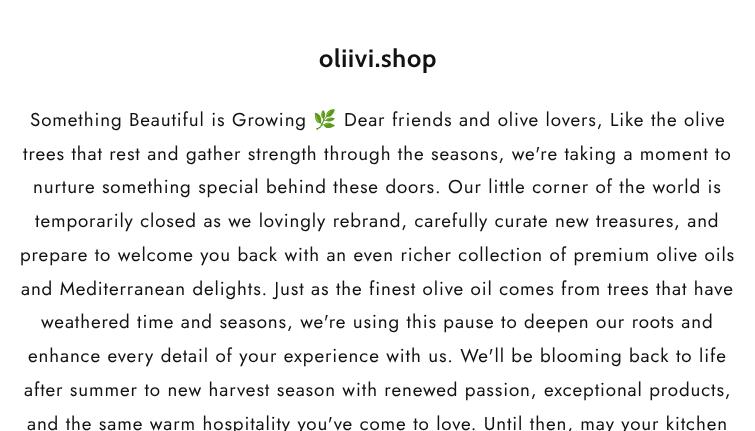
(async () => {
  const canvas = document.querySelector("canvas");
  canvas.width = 755;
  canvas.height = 431;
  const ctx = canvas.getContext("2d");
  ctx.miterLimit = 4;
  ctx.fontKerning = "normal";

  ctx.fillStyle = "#ffffff";
  ctx.fillRect(0, 0, 755, 431);
  ctx.letterSpacing = "0.75px";
  ctx.font = "bold 25px Cabin";
  ctx.fillStyle = "#121212";
  ctx.fillText("oliivi.shop", 319, 67);
  ctx.letterSpacing = "0.88px";
  ctx.font = "18.75px Jost";
  ctx.fillText("Something Beautiful is Growing", 30, 126);
  ctx.font = "18.75px Noto Color Emoji";
  ctx.fillText("🌿", 313, 126);
  ctx.font = "18.75px Jost";
  for (const [text, x, y] of [
    ["Dear friends and olive lovers, Like the olive", 344, 126],
    ["trees that rest and gather strength through the seasons, we're taking a moment to", 23, 160],
    ["nurture something special behind these doors. Our little corner of the world is", 33, 193],
    ["temporarily closed as we lovingly rebrand, carefully curate new treasures, and", 35, 227],
    ["prepare to welcome you back with an even richer collection of premium olive oils", 20, 261],
    ["and Mediterranean delights. Just as the finest olive oil comes from trees that have", 21, 295],
    ["weathered time and seasons, we're using this pause to deepen our roots and", 41, 328],
    ["enhance every detail of your experience with us. We'll be blooming back to life", 28, 362],
    ["after summer to new harvest season with renewed passion, exceptional products,", 24, 396],
    ["and the same warm hospitality you've come to love. Until then, may your kitchen", 27, 430],
  ]) {
    ctx.fillText(text, x, y);
  }
})();
